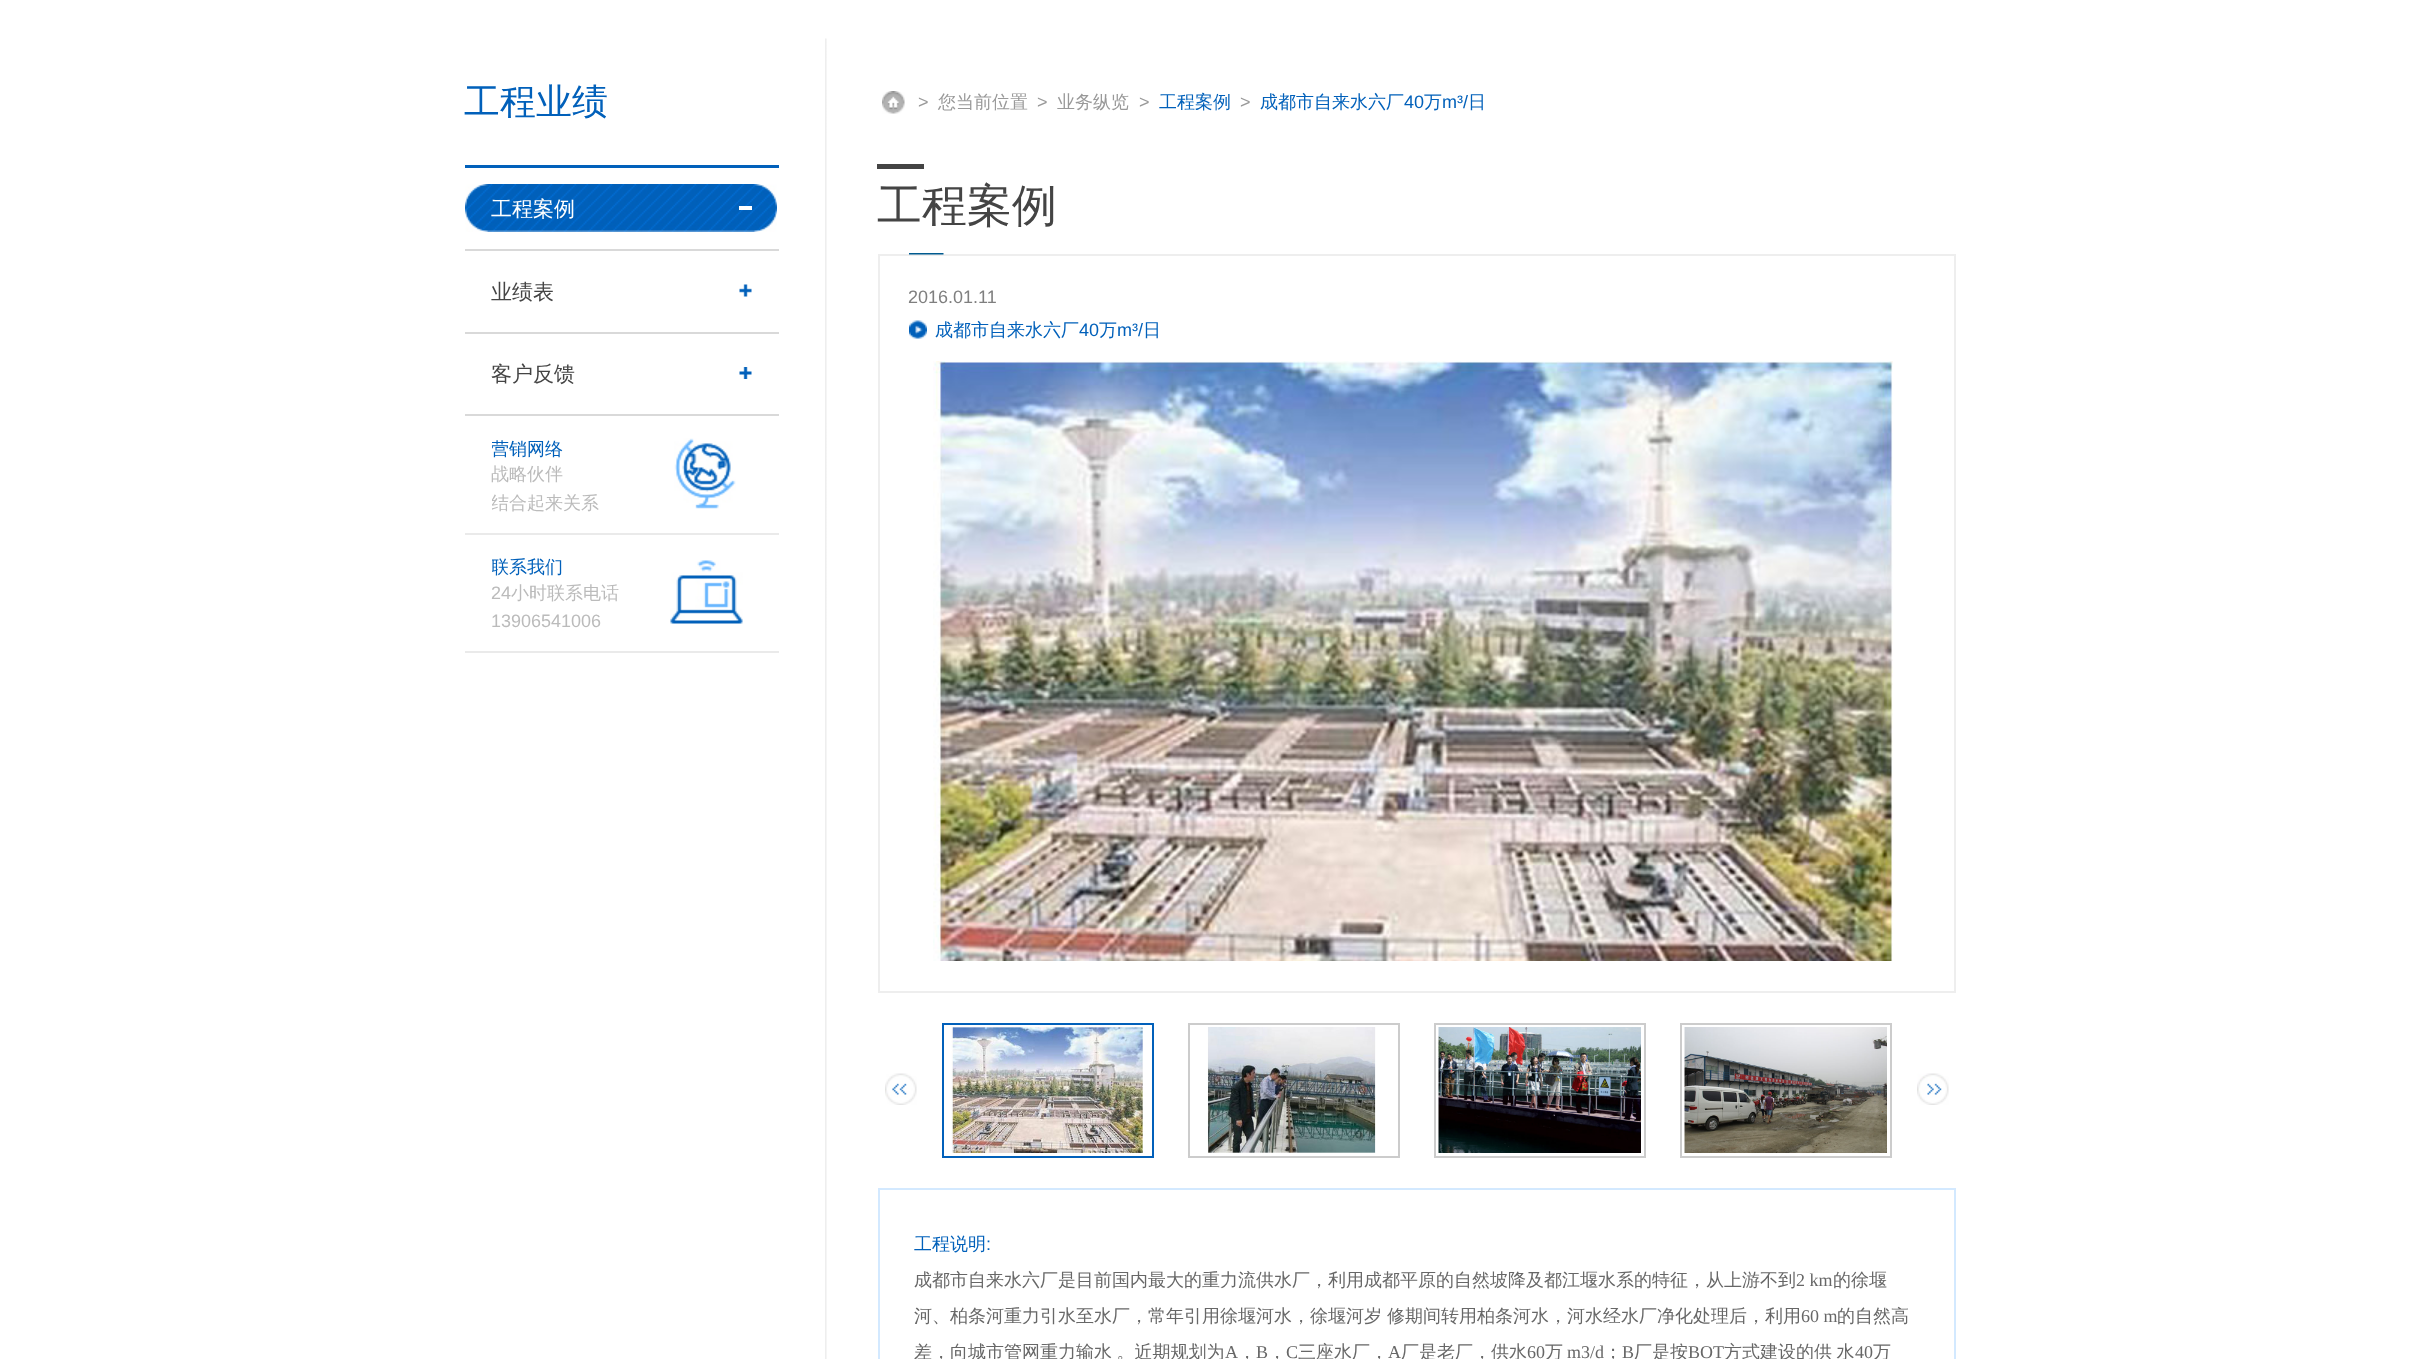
(async () => {
  const canvas = document.querySelector("canvas");
  canvas.width = 2419;
  canvas.height = 1359;
  const ctx = canvas.getContext("2d");
  ctx.miterLimit = 4;
  ctx.fontKerning = "normal";
  async function loadImage(src) {
    const img = new Image();
    img.src = src;
    await img.decode();
    return img;
  }

  ctx.fillStyle = "#ffffff";
  ctx.fillRect(0, 0, 2419, 1359);
  ctx.drawImage(await loadImage("img/1.png"), 825, 38, 2, 1321);
  ctx.fillStyle = "#0160ba";
  ctx.fillRect(465, 165, 314, 3);
  ctx.fillStyle = "#d9d9d9";
  ctx.fillRect(465, 249, 314, 2);
  ctx.drawImage(await loadImage("img/2.png"), 465, 184, 312, 48);
  ctx.fillStyle = "#ffffff";
  ctx.fillRect(739, 206, 13, 4);
  ctx.fillStyle = "#d9d9d9";
  ctx.fillRect(465, 332, 314, 2);
  ctx.drawImage(await loadImage("img/3.png"), 739, 284, 13, 13);
  ctx.fillRect(465, 414, 314, 2);
  ctx.drawImage(await loadImage("img/4.png"), 739, 367, 13, 12);
  ctx.fillStyle = "#eaeaea";
  ctx.fillRect(465, 533, 314, 2);
  ctx.drawImage(await loadImage("img/5.png"), 674, 438, 62, 71);
  ctx.fillRect(465, 651, 314, 2);
  ctx.drawImage(await loadImage("img/6.png"), 670, 560, 73, 64);
  ctx.drawImage(await loadImage("img/7.png"), 882, 91, 23, 23);
  ctx.fillStyle = "#444444";
  ctx.fillRect(877, 164, 47, 5);
  ctx.strokeStyle = "#eeeeee";
  ctx.lineWidth = 2;
  ctx.strokeRect(879, 255, 1076, 737);
  ctx.drawImage(await loadImage("img/8.png"), 909, 253, 35, 2);
  ctx.drawImage(await loadImage("img/9.png"), 909, 320, 18, 19);
  ctx.drawImage(await loadImage("img/10.png"), 933, 361, 960, 600);
  ctx.drawImage(await loadImage("img/11.png"), 885, 1073, 32, 32);
  ctx.strokeStyle = "#0160ba";
  ctx.strokeRect(943, 1024, 210, 133);
  ctx.drawImage(await loadImage("img/12.png"), 951, 1027, 192, 126);
  ctx.strokeStyle = "#cccccc";
  ctx.strokeRect(1189, 1024, 210, 133);
  ctx.drawImage(await loadImage("img/13.png"), 1207, 1027, 169, 126);
  ctx.strokeRect(1435, 1024, 210, 133);
  ctx.drawImage(await loadImage("img/14.png"), 1438, 1027, 203, 126);
  ctx.strokeRect(1681, 1024, 210, 133);
  ctx.drawImage(await loadImage("img/15.png"), 1684, 1027, 203, 126);
  ctx.drawImage(await loadImage("img/16.png"), 1917, 1073, 32, 32);
  ctx.strokeStyle = "#d3e9ff";
  ctx.strokeRect(879, 1189, 1076, 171);
  ctx.font = "500 36px WenQuanYi Zen Hei";
  ctx.fillStyle = "#0160ba";
  ctx.fillText("工程业绩", 464, 114);
  ctx.font = "500 21px WenQuanYi Zen Hei";
  ctx.fillStyle = "#ffffff";
  ctx.fillText("工程案例", 491, 216);
  ctx.fillStyle = "#444444";
  ctx.fillText("业绩表", 491, 299);
  ctx.fillText("客户反馈", 491, 381);
  ctx.save();
  ctx.beginPath();
  ctx.rect(492, 431, 168, 30);
  ctx.clip();
  ctx.font = "500 18px WenQuanYi Zen Hei";
  ctx.fillStyle = "#0160ba";
  ctx.fillText("营销网络", 491, 455);
  ctx.restore();
  ctx.font = "500 18px WenQuanYi Zen Hei";
  ctx.fillStyle = "#bbbbbb";
  ctx.fillText("战略伙伴", 491, 480);
  ctx.save();
  ctx.beginPath();
  ctx.rect(492, 489, 168, 29);
  ctx.clip();
  ctx.fillText("结合起来关系", 491, 509);
  ctx.restore();
  ctx.save();
  ctx.beginPath();
  ctx.rect(492, 549, 168, 30);
  ctx.clip();
  ctx.fillStyle = "#0160ba";
  ctx.fillText("联系我们", 491, 573);
  ctx.restore();
  ctx.font = "18px Liberation Sans";
  ctx.fillText("24", 491, 599);
  ctx.font = "500 18px WenQuanYi Zen Hei";
  ctx.fillText("小时联系电话", 511, 599);
  ctx.font = "18px Liberation Sans";
  ctx.fillText("13906541006", 491, 627);
  ctx.fillStyle = "#999999";
  ctx.fillText(">", 918, 108);
  ctx.font = "500 18px WenQuanYi Zen Hei";
  ctx.fillText("您当前位置", 938, 108);
  ctx.font = "18px Liberation Sans";
  ctx.fillText(">", 1037, 108);
  ctx.font = "500 18px WenQuanYi Zen Hei";
  ctx.fillText("业务纵览", 1057, 108);
  ctx.font = "18px Liberation Sans";
  ctx.fillText(">", 1139, 108);
  ctx.font = "500 18px WenQuanYi Zen Hei";
  ctx.fillStyle = "#0160ba";
  ctx.fillText("工程案例", 1159, 108);
  ctx.font = "18px Liberation Sans";
  ctx.fillStyle = "#999999";
  ctx.fillText(">", 1240, 108);
  ctx.font = "500 18px WenQuanYi Zen Hei";
  ctx.fillStyle = "#0160ba";
  ctx.fillText("成都市自来水六厂", 1260, 108);
  ctx.font = "18px Liberation Sans";
  ctx.fillText("40", 1404, 108);
  ctx.font = "500 18px WenQuanYi Zen Hei";
  ctx.fillText("万", 1424, 108);
  ctx.font = "18px Liberation Sans";
  ctx.fillText("m³/", 1442, 108);
  ctx.font = "500 18px WenQuanYi Zen Hei";
  ctx.fillText("日", 1468, 108);
  ctx.font = "500 45px WenQuanYi Zen Hei";
  ctx.fillStyle = "#444444";
  ctx.fillText("工程案例", 877, 221);
  ctx.font = "18px Liberation Sans";
  ctx.fillStyle = "#7f7f7f";
  ctx.fillText("2016.01.11", 908, 303);
  ctx.font = "500 18px WenQuanYi Zen Hei";
  ctx.fillStyle = "#0160ba";
  ctx.fillText("成都市自来水六厂", 935, 336);
  ctx.font = "18px Liberation Sans";
  ctx.fillText("40", 1079, 336);
  ctx.font = "500 18px WenQuanYi Zen Hei";
  ctx.fillText("万", 1099, 336);
  ctx.font = "18px Liberation Sans";
  ctx.fillText("m³/", 1117, 336);
  ctx.font = "500 18px WenQuanYi Zen Hei";
  ctx.fillText("日", 1143, 336);
  ctx.fillText("工程说明", 914, 1250);
  ctx.font = "18px Liberation Sans";
  ctx.fillText(":", 986, 1250);
  ctx.font = "500 18px WenQuanYi Zen Hei";
  ctx.fillStyle = "#676767";
  ctx.fillText("成都市自来水六厂是目前国内最大的重力流供水厂，利用成都平原的自然坡降及都江堰水系的特征，从上游不到", 914, 1286);
  ctx.font = "18px Liberation Serif";
  ctx.fillText("2 km", 1796, 1286);
  ctx.font = "500 18px WenQuanYi Zen Hei";
  for (const [text, x, y] of [
    ["的徐堰", 1833, 1286],
    ["河、柏条河重力引水至水厂，常年引用徐堰河水，徐堰河岁", 914, 1322],
    ["修期间转用柏条河水，河水经水厂净化处理后，利用", 1387, 1322],
  ]) {
    ctx.fillText(text, x, y);
  }
  ctx.font = "18px Liberation Serif";
  ctx.fillText("60 m", 1801, 1322);
  ctx.font = "500 18px WenQuanYi Zen Hei";
  ctx.fillText("的自然高", 1837, 1322);
  ctx.wordSpacing = "-1px";
  ctx.fillText("差，向城市管网重力输水 。近期规划为", 914, 1358);
  ctx.wordSpacing = "0px";
  ctx.font = "18px Liberation Serif";
  ctx.fillText("A", 1225, 1358);
  ctx.font = "500 18px WenQuanYi Zen Hei";
  ctx.fillText("，", 1238, 1358);
  ctx.font = "18px Liberation Serif";
  ctx.fillText("B", 1256, 1358);
  ctx.font = "500 18px WenQuanYi Zen Hei";
  ctx.fillText("，", 1268, 1358);
  ctx.font = "18px Liberation Serif";
  ctx.fillText("C", 1286, 1358);
  ctx.font = "500 18px WenQuanYi Zen Hei";
  ctx.fillText("三座水厂，", 1298, 1358);
  ctx.font = "18px Liberation Serif";
  ctx.fillText("A", 1388, 1358);
  ctx.font = "500 18px WenQuanYi Zen Hei";
  ctx.fillText("厂是老厂，供水", 1401, 1358);
  ctx.font = "18px Liberation Serif";
  ctx.fillText("60", 1527, 1358);
  ctx.font = "500 18px WenQuanYi Zen Hei";
  ctx.fillText("万", 1545, 1358);
  ctx.font = "18px Liberation Serif";
  ctx.fillText("m3/d", 1567, 1358);
  ctx.font = "500 18px WenQuanYi Zen Hei";
  ctx.fillText("；", 1604, 1358);
  ctx.font = "18px Liberation Serif";
  ctx.fillText("B", 1622, 1358);
  ctx.font = "500 18px WenQuanYi Zen Hei";
  ctx.fillText("厂是按", 1634, 1358);
  ctx.font = "18px Liberation Serif";
  ctx.fillText("BOT", 1688, 1358);
  ctx.wordSpacing = "-1px";
  ctx.font = "500 18px WenQuanYi Zen Hei";
  ctx.fillText("方式建设的供 水", 1724, 1358);
  ctx.wordSpacing = "0px";
  ctx.font = "18px Liberation Serif";
  ctx.fillText("40", 1855, 1358);
  ctx.font = "500 18px WenQuanYi Zen Hei";
  ctx.fillText("万", 1873, 1358);
})();
